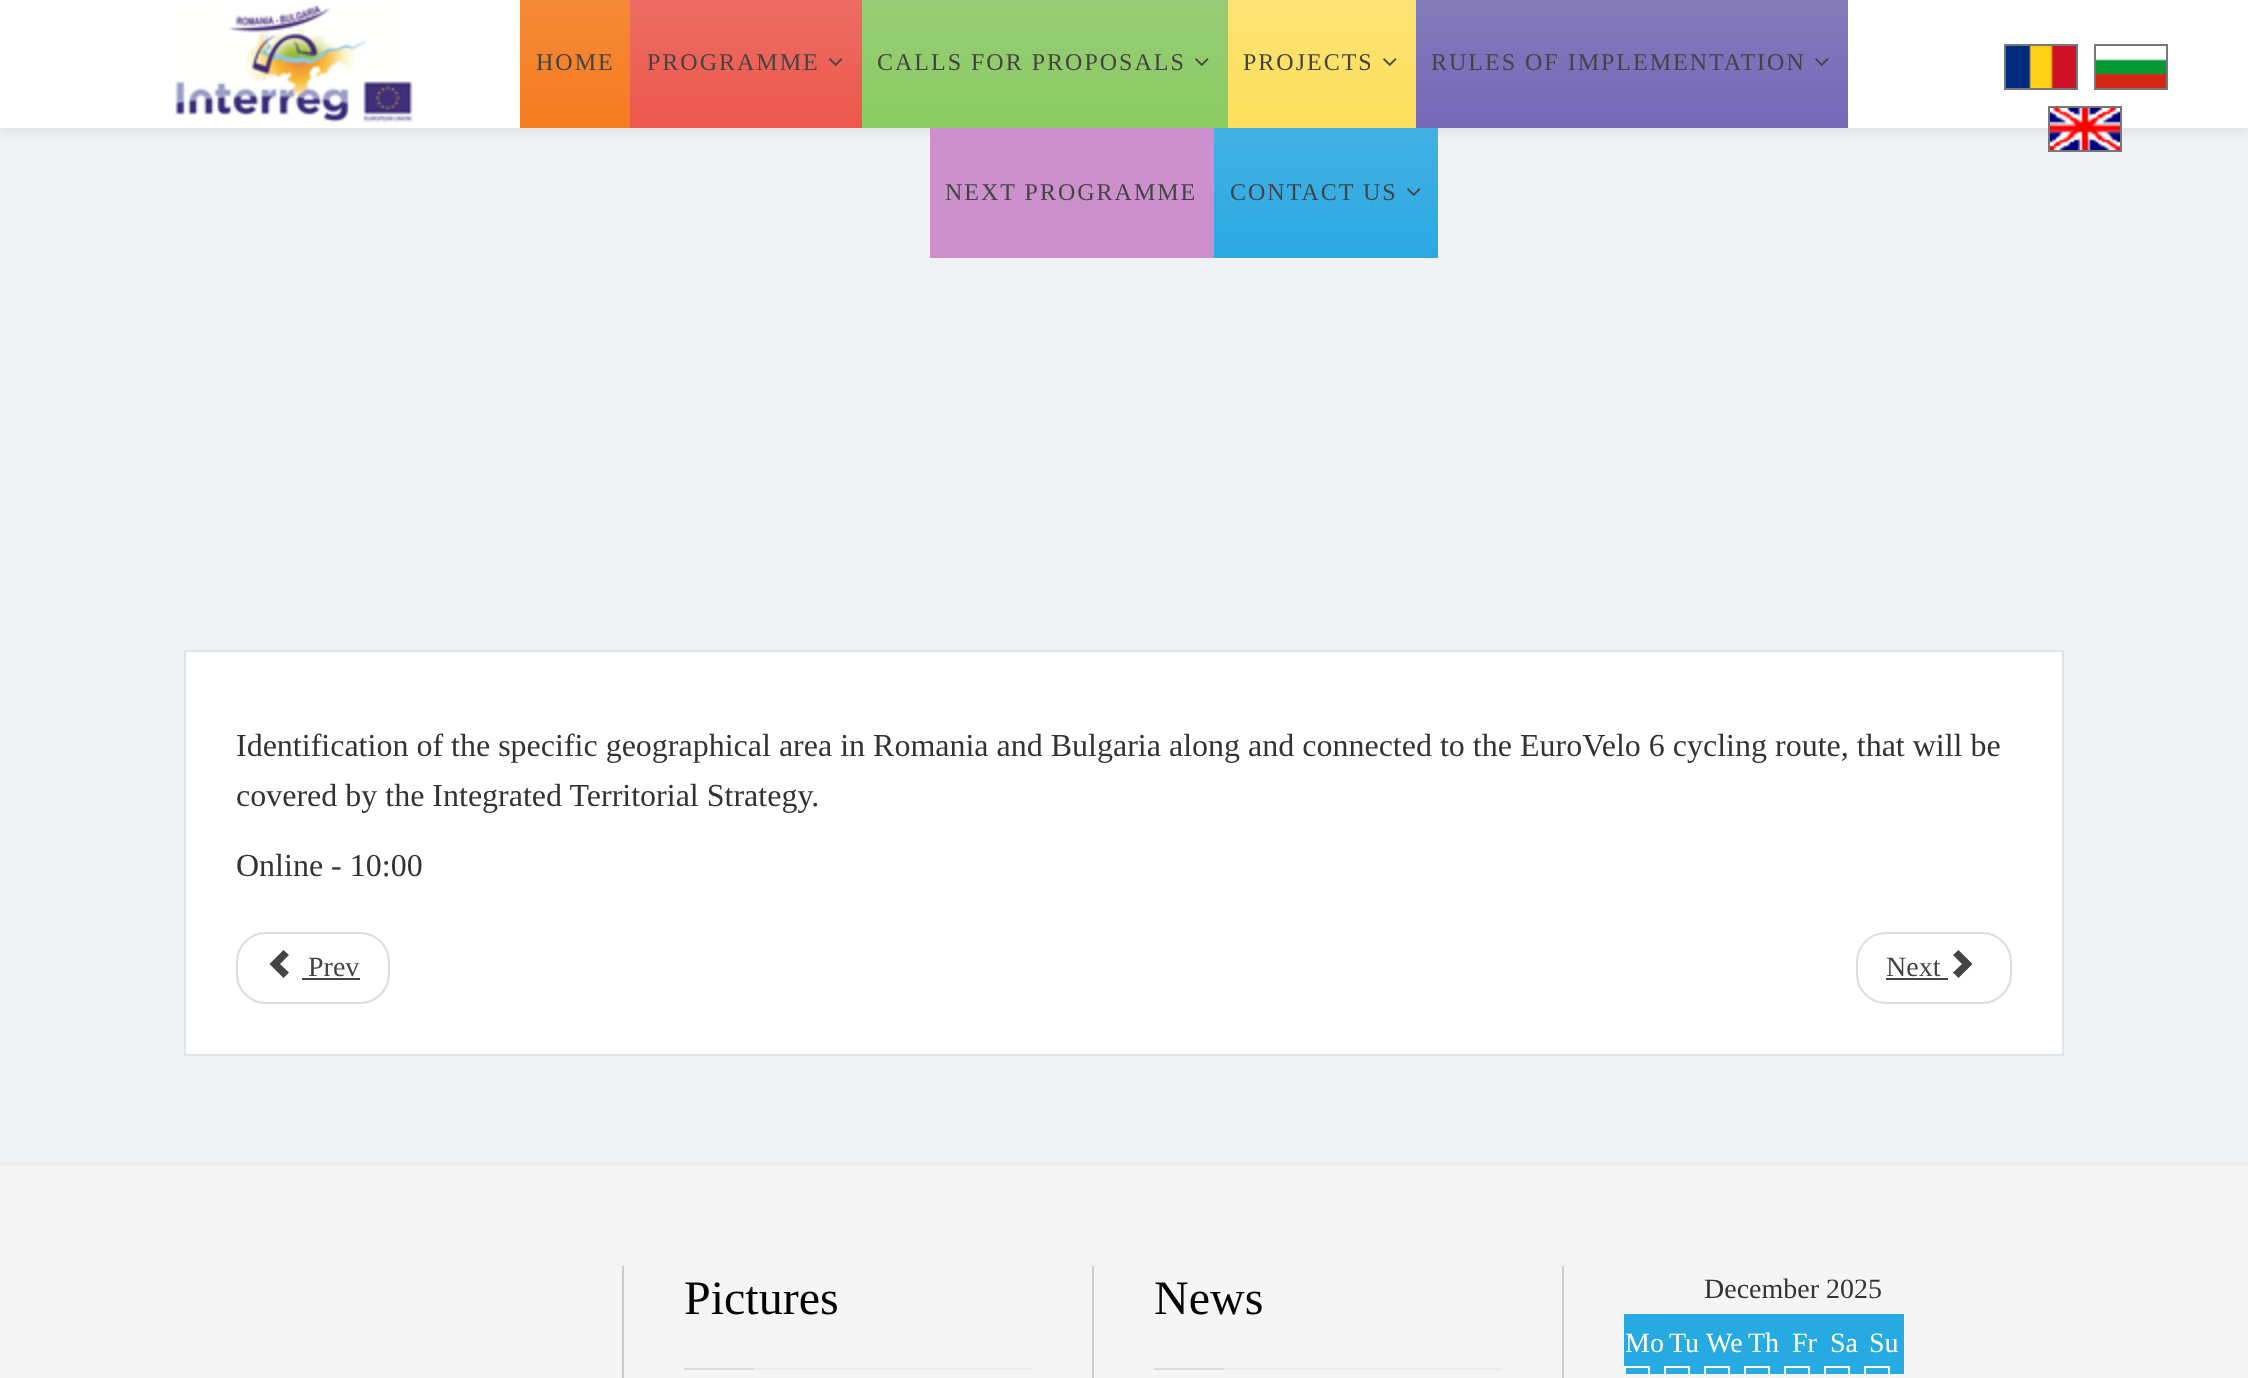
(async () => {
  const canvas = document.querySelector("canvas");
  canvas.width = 2248;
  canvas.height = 1378;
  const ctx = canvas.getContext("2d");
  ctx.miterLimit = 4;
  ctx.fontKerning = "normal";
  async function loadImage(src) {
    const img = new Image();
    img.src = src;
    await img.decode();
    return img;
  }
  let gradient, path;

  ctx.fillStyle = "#eff3f5";
  ctx.fillRect(0, 0, 2248, 1378);
  ctx.fillStyle = "rgba(0, 0, 0, 0.05)";
  ctx.filter = "blur(3px)";
  ctx.beginPath();
  ctx.rect(0, 6, 2248, 128);
  ctx.fill();
  ctx.filter = "none";
  ctx.fillStyle = "#ffffff";
  ctx.fillRect(0, 0, 2248, 128);
  ctx.drawImage(await loadImage("img/1.png"), 175, 5, 238, 118);
  gradient = ctx.createLinearGradient(575, -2, 575, 128);
  gradient.addColorStop(0, "#f58a38");
  gradient.addColorStop(1, "#f57c20");
  ctx.fillStyle = gradient;
  ctx.fillRect(520, 0, 110, 128);
  gradient = ctx.createLinearGradient(746, -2, 746, 128);
  gradient.addColorStop(0, "#ed6d64");
  gradient.addColorStop(1, "#ed574c");
  ctx.fillStyle = gradient;
  ctx.fillRect(630, 0, 232, 128);
  ctx.drawImage(await loadImage("img/2.png"), 829, 58, 14, 8);
  gradient = ctx.createLinearGradient(1045, -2, 1045, 128);
  gradient.addColorStop(0, "#97cc76");
  gradient.addColorStop(1, "#8bcc62");
  ctx.fillStyle = gradient;
  ctx.fillRect(862, 0, 366, 128);
  ctx.drawImage(await loadImage("img/3.png"), 1195, 58, 14, 8);
  gradient = ctx.createLinearGradient(1322, -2, 1322, 128);
  gradient.addColorStop(0, "#fce374");
  gradient.addColorStop(1, "#fcdf5b");
  ctx.fillStyle = gradient;
  ctx.fillRect(1228, 0, 188, 128);
  ctx.drawImage(await loadImage("img/4.png"), 1383, 58, 14, 8);
  gradient = ctx.createLinearGradient(1632, -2, 1632, 128);
  gradient.addColorStop(0, "#847bba");
  gradient.addColorStop(1, "#7568ba");
  ctx.fillStyle = gradient;
  ctx.fillRect(1416, 0, 432, 128);
  ctx.drawImage(await loadImage("img/5.png"), 1815, 58, 14, 8);
  ctx.fillStyle = "#cc91cc";
  ctx.fillRect(930, 128, 284, 130);
  gradient = ctx.createLinearGradient(1326, 128, 1326, 258);
  gradient.addColorStop(0, "#42b0e3");
  gradient.addColorStop(1, "#2ba9e3");
  ctx.fillStyle = gradient;
  ctx.fillRect(1214, 128, 224, 130);
  ctx.drawImage(await loadImage("img/6.png"), 1407, 188, 14, 8);
  ctx.strokeStyle = "#777777";
  ctx.lineWidth = 2;
  ctx.strokeRect(2005, 45, 72, 44);
  ctx.drawImage(await loadImage("img/7.png"), 2006, 46, 70, 42);
  ctx.strokeRect(2095, 45, 72, 44);
  ctx.drawImage(await loadImage("img/8.png"), 2096, 59, 70, 29);
  ctx.strokeRect(2049, 107, 72, 44);
  ctx.drawImage(await loadImage("img/9.png"), 2050, 108, 70, 42);
  ctx.fillStyle = "#ffffff";
  ctx.beginPath();
  ctx.rect(185, 651, 1878, 404);
  ctx.fill();
  ctx.strokeStyle = "#dee4e7";
  ctx.stroke();
  ctx.beginPath();
  ctx.roundRect(237, 933, 152, 70, 29);
  ctx.strokeStyle = "#dddddd";
  ctx.stroke();
  ctx.fillStyle = "#444444";
  path = new Path2D("M283.5 978L269.5 964L283.5 950L289 955L280 964L289 972.5Z");
  ctx.fill(path);
  ctx.fillRect(302, 978, 58, 2);
  ctx.beginPath();
  ctx.roundRect(1857, 933, 154, 70, 29);
  ctx.stroke();
  ctx.fillRect(1886, 978, 62, 2);
  path = new Path2D("M1958.5 950L1972.5 964L1958.5 978L1953 972.5L1962 964L1953 955Z");
  ctx.fill(path);
  for (const [x, y, w, h, color] of [
    [0, 1166, 2248, 212, "#f5f5f5"],
    [0, 1162, 2248, 4, "#ececec"],
    [622, 1266, 2, 112, "#cccccc"],
    [1092, 1266, 2, 112, "#cccccc"],
    [684, 1368, 70, 2, "#dcd9d9"],
    [754, 1368, 278, 2, "#ececec"],
    [1562, 1266, 2, 112, "#cccccc"],
    [1154, 1368, 70, 2, "#dcd9d9"],
    [1224, 1368, 278, 2, "#ececec"],
    [1624, 1314, 280, 60, "#26aae1"],
  ]) {
    ctx.fillStyle = color;
    ctx.fillRect(x, y, w, h);
  }
  ctx.strokeStyle = "#fafafa";
  ctx.strokeRect(1625, 1367, 24, 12);
  ctx.strokeRect(1665, 1367, 24, 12);
  ctx.strokeRect(1705, 1367, 24, 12);
  ctx.strokeRect(1745, 1367, 24, 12);
  ctx.strokeRect(1785, 1367, 24, 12);
  ctx.strokeRect(1825, 1367, 24, 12);
  ctx.strokeRect(1865, 1367, 24, 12);
  ctx.letterSpacing = "2px";
  ctx.font = "24px Liberation Serif";
  ctx.fillStyle = "#444444";
  for (const [text, x, y] of [
    ["HOME", 536, 70],
    ["PROGRAMME", 647, 70],
    ["CALLS FOR PROPOSALS", 877, 70],
    ["PROJECTS", 1243, 70],
    ["RULES OF IMPLEMENTATION", 1431, 70],
    ["NEXT PROGRAMME", 945, 200],
    ["CONTACT US", 1230, 200],
  ]) {
    ctx.fillText(text, x, y);
  }
  ctx.letterSpacing = "0px";
  ctx.font = "32px Liberation Serif";
  ctx.fillStyle = "#333333";
  for (const [text, x, y] of [
    ["Identification of the specific geographical area in Romania and Bulgaria along and connected to the EuroVelo 6 cycling route, that will be", 236, 756],
    ["covered by the Integrated Territorial Strategy.", 236, 806],
    ["Online - 10:00", 236, 876],
  ]) {
    ctx.fillText(text, x, y);
  }
  ctx.font = "28px Liberation Serif";
  ctx.fillStyle = "#444444";
  ctx.fillText("Prev", 308, 976);
  ctx.fillText("Next", 1886, 976);
  ctx.font = "48px Liberation Serif";
  ctx.fillStyle = "#050505";
  ctx.fillText("Pictures", 684, 1314);
  ctx.fillText("News", 1154, 1314);
  ctx.font = "28px Liberation Serif";
  ctx.fillStyle = "#333333";
  ctx.fillText("December 2025", 1704, 1298);
  ctx.fillStyle = "#ffffff";
  for (const [text, x, y] of [
    ["Mo", 1625, 1352],
    ["Tu", 1669, 1352],
    ["We", 1706, 1352],
    ["Th", 1748, 1352],
    ["Fr", 1792, 1352],
    ["Sa", 1830, 1352],
    ["Su", 1869, 1352],
  ]) {
    ctx.fillText(text, x, y);
  }
})();
